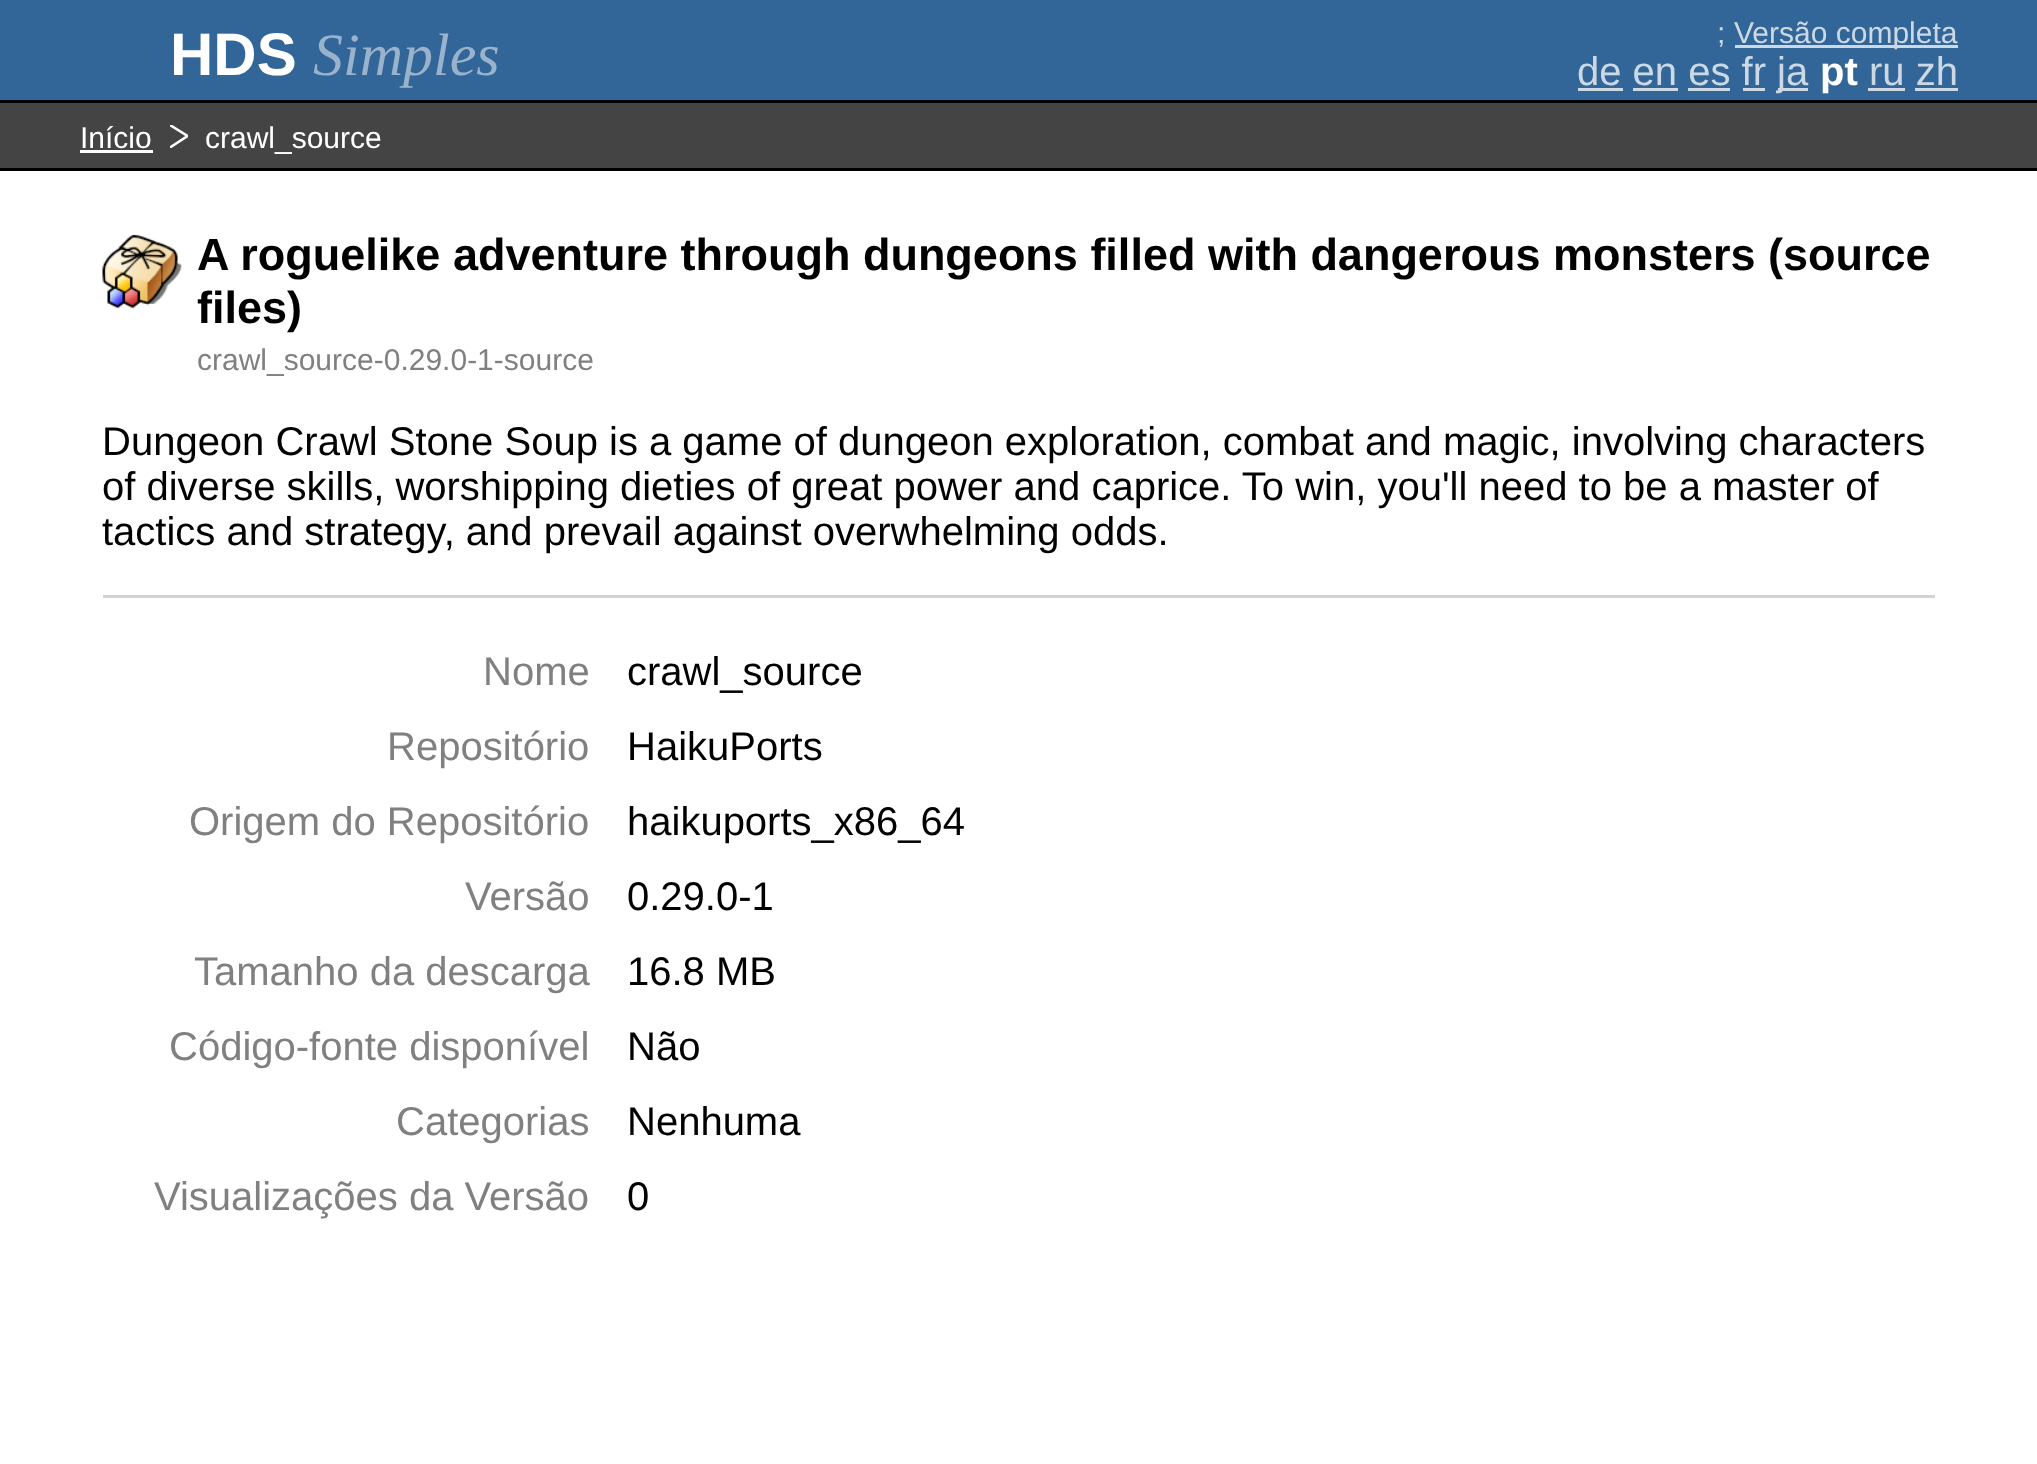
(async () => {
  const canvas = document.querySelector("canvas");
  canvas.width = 2037;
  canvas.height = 1464;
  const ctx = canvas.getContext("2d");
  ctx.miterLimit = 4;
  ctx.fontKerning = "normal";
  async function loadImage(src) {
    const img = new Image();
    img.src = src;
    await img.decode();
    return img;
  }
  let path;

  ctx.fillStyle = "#ffffff";
  ctx.fillRect(0, 0, 2037, 1464);
  for (const [x, y, w, h, color] of [
    [0, 0, 2037, 100, "#336698"],
    [0, 100, 2037, 3, "#000000"],
    [1735, 45, 223, 3, "#ccd9e5"],
    [1578, 88, 45, 3, "#ccd9e5"],
    [1633, 88, 45, 3, "#ccd9e5"],
    [1688, 88, 42, 3, "#ccd9e5"],
    [1743, 88, 22, 3, "#ccd9e5"],
    [1778, 88, 30, 3, "#ccd9e5"],
    [1868, 88, 37, 3, "#ccd9e5"],
    [1915, 88, 43, 3, "#ccd9e5"],
    [0, 103, 2037, 65, "#444444"],
    [0, 168, 2037, 3, "#000000"],
    [80, 150, 73, 3, "#ffffff"],
  ]) {
    ctx.fillStyle = color;
    ctx.fillRect(x, y, w, h);
  }
  ctx.save();
  ctx.beginPath();
  ctx.rect(170, 125, 18, 23);
  ctx.clip();
  path = new Path2D("M170 147.5L187.5 136L170 125");
  ctx.strokeStyle = "#ffffff";
  ctx.lineWidth = 2.5;
  ctx.stroke(path);
  ctx.restore();
  ctx.drawImage(await loadImage("img/1.png"), 102, 234, 80, 75);
  ctx.fillStyle = "#d3d3d3";
  ctx.fillRect(103, 595, 1832, 3);
  ctx.font = "bold 60px Liberation Sans";
  ctx.fillStyle = "#ffffff";
  ctx.fillText("HDS", 170, 75);
  ctx.font = "italic 60px Liberation Serif";
  ctx.fillStyle = "#99b3cc";
  ctx.fillText("Simples", 313, 75);
  ctx.font = "30px Liberation Sans";
  ctx.fillStyle = "#ccd9e5";
  ctx.fillText(";", 1717, 43);
  ctx.fillText("Versão completa", 1734, 43);
  ctx.font = "40px Liberation Sans";
  ctx.fillText("de en es fr", 1577, 85);
  ctx.fillText("ja", 1777, 85);
  ctx.font = "bold 40px Liberation Sans";
  ctx.fillStyle = "#ffffff";
  ctx.fillText("pt", 1820, 85);
  ctx.font = "40px Liberation Sans";
  ctx.fillStyle = "#ccd9e5";
  ctx.fillText("ru zh", 1869, 85);
  ctx.font = "30px Liberation Sans";
  ctx.fillStyle = "#ffffff";
  ctx.fillText("Início", 80, 148);
  ctx.fillText("crawl_source", 205, 148);
  ctx.font = "bold 45px Liberation Sans";
  ctx.fillStyle = "#000000";
  ctx.fillText("A roguelike adventure through dungeons filled with dangerous monsters (source", 197, 270);
  ctx.fillText("files)", 197, 323);
  ctx.font = "30px Liberation Sans";
  ctx.fillStyle = "#808080";
  ctx.fillText("crawl_source-0.29.0-1-source", 197, 370);
  ctx.font = "40px Liberation Sans";
  ctx.fillStyle = "#000000";
  for (const [text, x, y] of [
    ["Dungeon Crawl Stone Soup is a game of dungeon exploration, combat and magic, involving characters", 102, 455],
    ["of diverse skills, worshipping dieties of great power and caprice. To win, you'll need to be a master of", 102, 500],
    ["tactics and strategy, and prevail against overwhelming odds.", 102, 545],
  ]) {
    ctx.fillText(text, x, y);
  }
  ctx.fillStyle = "#808080";
  ctx.fillText("Nome", 483, 685);
  ctx.fillStyle = "#000000";
  ctx.fillText("crawl_source", 627, 685);
  ctx.fillStyle = "#808080";
  ctx.fillText("Repositório", 387, 760);
  ctx.fillStyle = "#000000";
  ctx.fillText("HaikuPorts", 627, 760);
  ctx.fillStyle = "#808080";
  ctx.fillText("Origem do Repositório", 189, 835);
  ctx.fillStyle = "#000000";
  ctx.fillText("haikuports_x86_64", 627, 835);
  ctx.fillStyle = "#808080";
  ctx.fillText("Versão", 465, 910);
  ctx.fillStyle = "#000000";
  ctx.fillText("0.29.0-1", 627, 910);
  ctx.fillStyle = "#808080";
  ctx.fillText("Tamanho da descarga", 194, 985);
  ctx.fillStyle = "#000000";
  ctx.fillText("16.8 MB", 627, 985);
  ctx.fillStyle = "#808080";
  ctx.fillText("Código-fonte disponível", 169, 1060);
  ctx.fillStyle = "#000000";
  ctx.fillText("Não", 627, 1060);
  ctx.fillStyle = "#808080";
  ctx.fillText("Categorias", 396, 1135);
  ctx.fillStyle = "#000000";
  ctx.fillText("Nenhuma", 627, 1135);
  ctx.fillStyle = "#808080";
  ctx.fillText("Visualizações da Versão", 154, 1210);
  ctx.fillStyle = "#000000";
  ctx.fillText("0", 627, 1210);
})();
